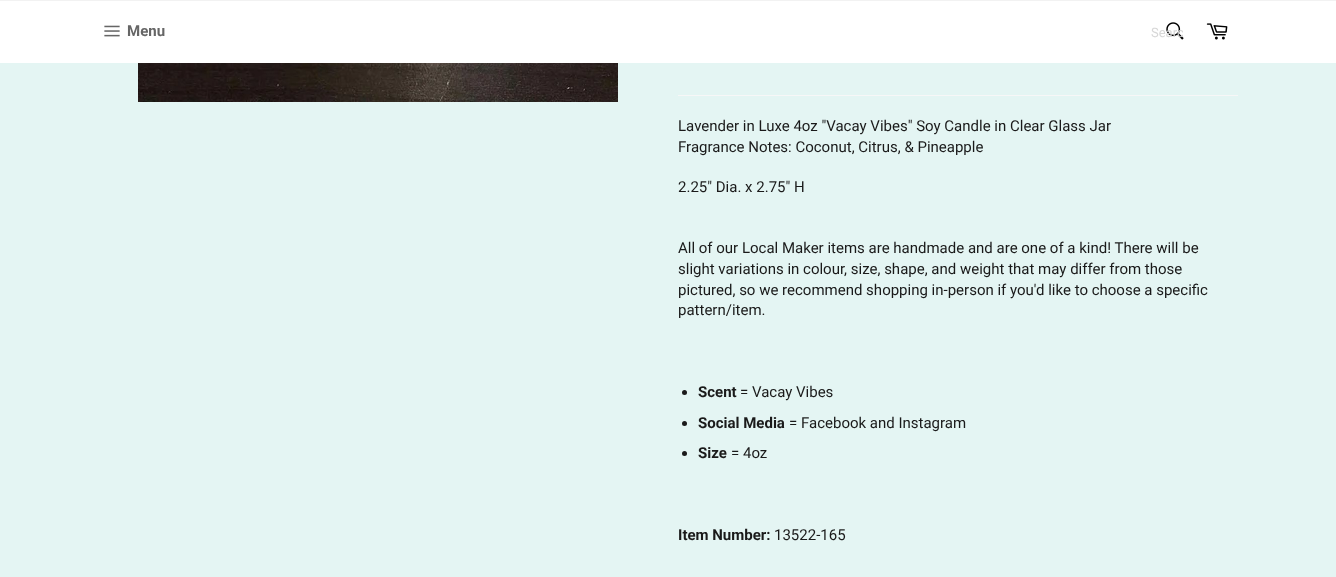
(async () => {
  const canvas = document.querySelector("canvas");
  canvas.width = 1336;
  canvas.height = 577;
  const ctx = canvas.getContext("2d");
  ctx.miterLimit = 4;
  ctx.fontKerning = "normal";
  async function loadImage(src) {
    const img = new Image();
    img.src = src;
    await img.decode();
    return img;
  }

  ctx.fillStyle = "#e4f5f3";
  ctx.fillRect(0, 0, 1336, 577);
  ctx.fillStyle = "#ffffff";
  ctx.fillRect(0, 1, 1336, 62);
  ctx.fillStyle = "#f2f2f2";
  ctx.fillRect(0, 0, 1336, 1);
  ctx.drawImage(await loadImage("img/1.png"), 104, 25, 16, 12);
  ctx.drawImage(await loadImage("img/2.png"), 1166, 22, 18, 18);
  ctx.drawImage(await loadImage("img/3.png"), 1206, 23, 22, 17);
  ctx.drawImage(await loadImage("img/4.png"), 138, 63, 480, 39);
  ctx.fillStyle = "#f7f7f7";
  ctx.fillRect(678, 95, 560, 1);
  ctx.fillStyle = "#1a1a1a";
  ctx.beginPath();
  ctx.arc(684.5, 392.5, 2.5, 0, Math.PI * 2);
  ctx.fill();
  ctx.beginPath();
  ctx.arc(684.5, 423.5, 2.5, 0, Math.PI * 2);
  ctx.fill();
  ctx.beginPath();
  ctx.arc(684.5, 453.5, 2.5, 0, Math.PI * 2);
  ctx.fill();
  ctx.font = "bold 15px Roboto";
  ctx.fillStyle = "#666666";
  ctx.fillText("Menu", 127, 36);
  ctx.save();
  ctx.beginPath();
  ctx.rect(1151, 25, 32, 15);
  ctx.clip();
  ctx.font = "13px Roboto";
  ctx.fillStyle = "#d7d7d7";
  ctx.fillText("Searc", 1151, 37);
  ctx.restore();
  ctx.font = "15px Roboto";
  ctx.fillStyle = "#1a1a1a";
  for (const [text, x, y] of [
    ["Lavender in Luxe 4oz \"Vacay Vibes\" Soy Candle in Clear Glass Jar", 678, 131],
    ["Fragrance Notes: Coconut, Citrus, & Pineapple", 678, 152],
    ["2.25\" Dia. x 2.75\" H", 678, 192],
    ["All of our Local Maker items are handmade and are one of a kind! There will be", 678, 253],
    ["slight variations in colour, size, shape, and weight that may differ from those", 678, 274],
    ["pictured, so we recommend shopping in-person if you'd like to choose a specific", 678, 295],
    ["pattern/item.", 678, 315],
  ]) {
    ctx.fillText(text, x, y);
  }
  ctx.font = "bold 15px Roboto";
  ctx.fillText("Scent", 698, 397);
  ctx.font = "15px Roboto";
  ctx.fillText("= Vacay Vibes", 740, 397);
  ctx.font = "bold 15px Roboto";
  ctx.fillText("Social Media", 698, 428);
  ctx.font = "15px Roboto";
  ctx.fillText("= Facebook and Instagram", 789, 428);
  ctx.font = "bold 15px Roboto";
  ctx.fillText("Size", 698, 458);
  ctx.font = "15px Roboto";
  ctx.fillText("= 4oz", 731, 458);
  ctx.font = "bold 15px Roboto";
  ctx.fillText("Item Number:", 678, 540);
  ctx.font = "15px Roboto";
  ctx.fillText("13522-165", 774, 540);
})();
